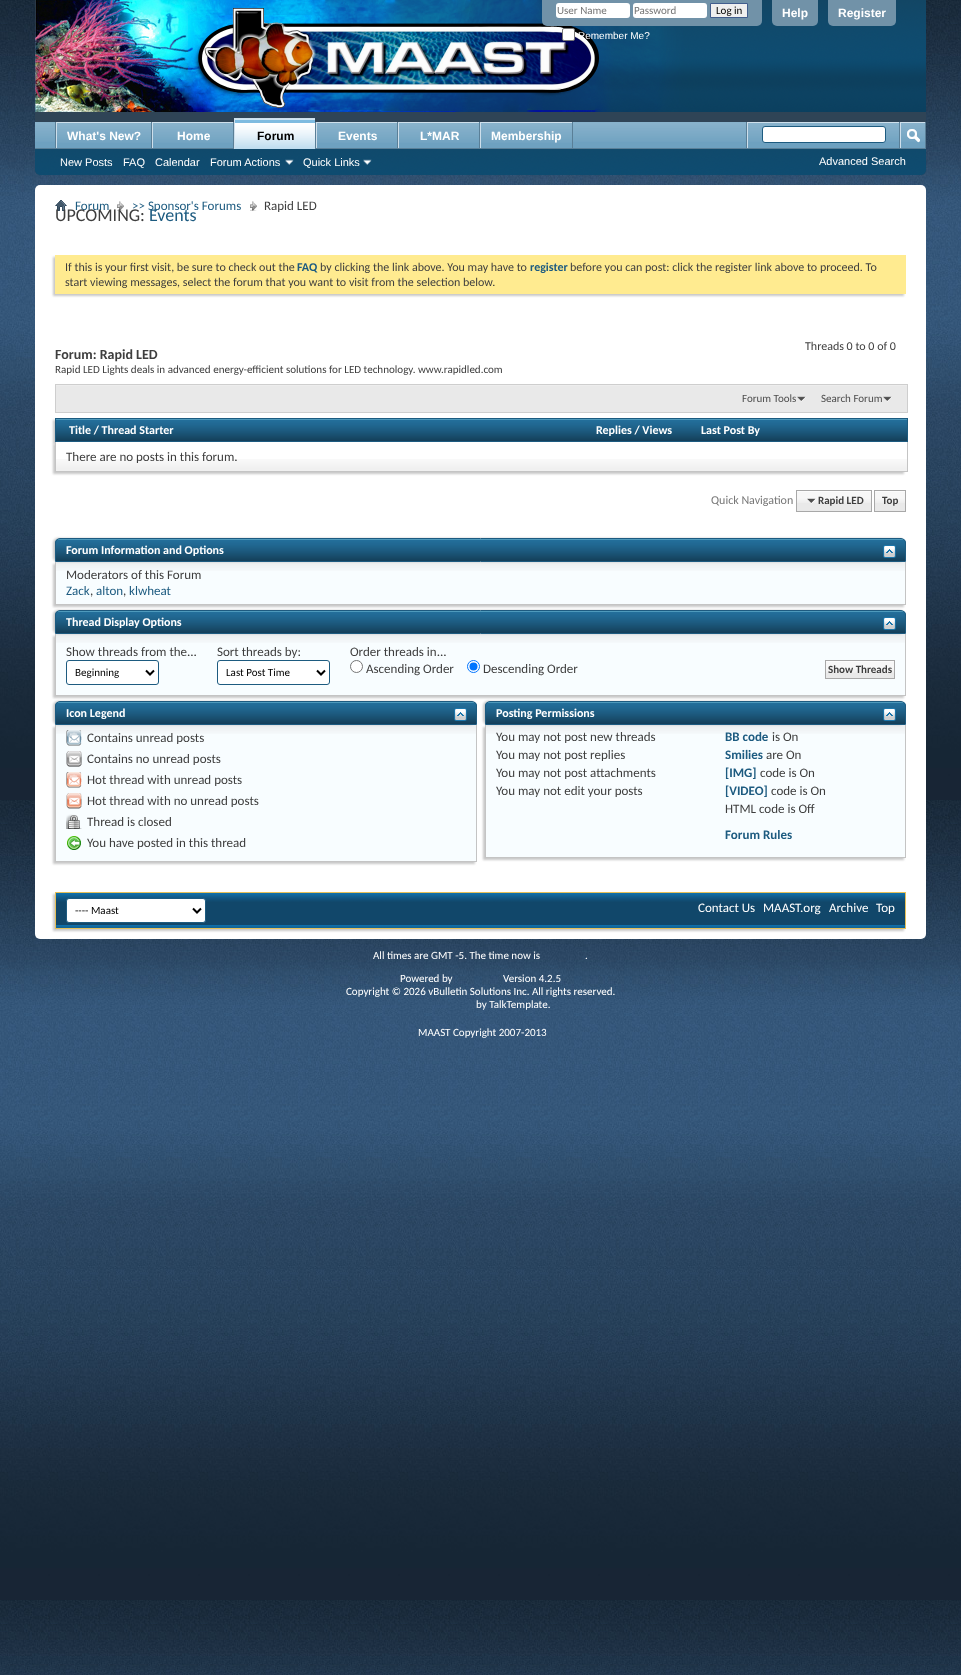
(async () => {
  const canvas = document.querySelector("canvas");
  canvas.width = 961;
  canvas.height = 1675;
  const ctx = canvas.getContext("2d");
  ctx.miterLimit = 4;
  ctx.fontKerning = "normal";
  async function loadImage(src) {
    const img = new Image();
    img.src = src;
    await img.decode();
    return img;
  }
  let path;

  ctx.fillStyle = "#ffffff";
  ctx.fillRect(0, 0, 961, 1675);
  ctx.drawImage(await loadImage("img/1.png"), 0, 0, 961, 1675);
  ctx.fillStyle = "#2f4456";
  ctx.beginPath();
  ctx.roundRect(35, 0, 891, 175, [0, 0, 5, 5]);
  ctx.fill();
  ctx.drawImage(await loadImage("img/2.png"), 696, 0, 230, 112);
  ctx.drawImage(await loadImage("img/3.png"), 35, 0, 661, 112);
  ctx.fillStyle = "#7192a8";
  ctx.beginPath();
  ctx.roundRect(542, 0, 220, 26, [0, 0, 5, 5]);
  ctx.fill();
  ctx.fillStyle = "#ffffff";
  ctx.beginPath();
  ctx.roundRect(556, 3, 74, 15, 3);
  ctx.fill();
  ctx.beginPath();
  ctx.roundRect(633, 3, 74, 15, 3);
  ctx.fill();
  ctx.fillStyle = "#efefef";
  ctx.beginPath();
  ctx.rect(710.5, 3.5, 37, 14);
  ctx.fill();
  ctx.strokeStyle = "#415d8d";
  ctx.stroke();
  ctx.fillStyle = "#ffffff";
  ctx.beginPath();
  ctx.roundRect(562.5, 28.5, 12, 12, 1.5);
  ctx.fill();
  ctx.strokeStyle = "#767676";
  ctx.stroke();
  ctx.fillStyle = "#7192a8";
  ctx.beginPath();
  ctx.roundRect(772, 0, 46, 26, [0, 0, 5, 5]);
  ctx.fill();
  ctx.beginPath();
  ctx.roundRect(828, 0, 68, 26, [0, 0, 5, 5]);
  ctx.fill();
  ctx.drawImage(await loadImage("img/4.png"), 35, 149, 891, 26);
  ctx.fillStyle = "#6ea1c0";
  ctx.fillRect(35, 122, 890, 26);
  ctx.drawImage(await loadImage("img/5.png"), 35, 122, 890, 20);
  for (const [x, y, w, h, color] of [
    [151, 122, 1, 27, "#5a7f97"],
    [55, 122, 1, 27, "#5a7f97"],
    [57, 123, 94, 19, "#6ea1c0"],
  ]) {
    ctx.fillStyle = color;
    ctx.fillRect(x, y, w, h);
  }
  ctx.drawImage(await loadImage("img/6.png"), 57, 123, 94, 20);
  for (const [x, y, w, h, color] of [
    [56, 122, 95, 1, "#cedfeb"],
    [56, 122, 1, 27, "#cedfeb"],
    [233, 122, 1, 27, "#5a7f97"],
    [153, 123, 80, 19, "#6ea1c0"],
  ]) {
    ctx.fillStyle = color;
    ctx.fillRect(x, y, w, h);
  }
  ctx.drawImage(await loadImage("img/7.png"), 153, 123, 80, 20);
  for (const [x, y, w, h, color] of [
    [152, 122, 81, 1, "#cedfeb"],
    [152, 122, 1, 27, "#cedfeb"],
    [315, 122, 1, 26, "#5a7f97"],
    [397, 122, 1, 27, "#5a7f97"],
    [316, 122, 81, 1, "#cedfeb"],
    [316, 122, 1, 27, "#cedfeb"],
    [479, 122, 1, 27, "#5a7f97"],
    [398, 122, 81, 1, "#cedfeb"],
    [398, 122, 1, 27, "#cedfeb"],
    [572, 122, 1, 27, "#5a7f97"],
    [480, 122, 92, 1, "#cedfeb"],
    [480, 122, 1, 27, "#cedfeb"],
    [35, 148, 891, 1, "#5a7f97"],
    [235, 119, 80, 30, "#7ebbe0"],
  ]) {
    ctx.fillStyle = color;
    ctx.fillRect(x, y, w, h);
  }
  ctx.drawImage(await loadImage("img/8.png"), 235, 119, 80, 30);
  for (const [x, y, w, h, color] of [
    [234, 118, 81, 1, "#cedfeb"],
    [234, 118, 1, 31, "#cedfeb"],
    [317, 123, 80, 19, "#6ea1c0"],
  ]) {
    ctx.fillStyle = color;
    ctx.fillRect(x, y, w, h);
  }
  ctx.drawImage(await loadImage("img/7.png"), 317, 123, 80, 20);
  ctx.fillRect(399, 123, 80, 19);
  ctx.drawImage(await loadImage("img/7.png"), 399, 123, 80, 20);
  ctx.fillRect(481, 123, 91, 19);
  ctx.drawImage(await loadImage("img/9.png"), 481, 123, 91, 20);
  ctx.drawImage(await loadImage("img/10.png"), 285, 159, 9, 6);
  ctx.drawImage(await loadImage("img/11.png"), 363, 159, 9, 6);
  for (const [x, y, w, h, color] of [
    [746, 122, 1, 26, "#5a7f97"],
    [747, 122, 152, 1, "#cedfeb"],
    [747, 122, 1, 26, "#cedfeb"],
  ]) {
    ctx.fillStyle = color;
    ctx.fillRect(x, y, w, h);
  }
  ctx.fillStyle = "#ffffff";
  ctx.beginPath();
  ctx.roundRect(762.5, 126.5, 123, 16, 2.5);
  ctx.fill();
  ctx.strokeStyle = "#1d5b80";
  ctx.stroke();
  for (const [x, y, w, h, color] of [
    [925, 122, 1, 26, "#5a7f97"],
    [899, 122, 1, 26, "#5a7f97"],
    [900, 122, 25, 1, "#cedfeb"],
    [900, 122, 1, 26, "#cedfeb"],
  ]) {
    ctx.fillStyle = color;
    ctx.fillRect(x, y, w, h);
  }
  ctx.drawImage(await loadImage("img/12.png"), 907, 129, 13, 14);
  ctx.fillStyle = "#ffffff";
  ctx.beginPath();
  ctx.roundRect(35, 185, 891, 754, 5);
  ctx.fill();
  ctx.drawImage(await loadImage("img/13.png"), 55, 200, 12, 11);
  ctx.drawImage(await loadImage("img/14.png"), 117, 201, 7, 10);
  ctx.drawImage(await loadImage("img/14.png"), 250, 201, 7, 10);
  ctx.fillStyle = "#c8c8c8";
  ctx.filter = "blur(1px)";
  ctx.beginPath();
  ctx.rect(53, 257, 851, 39);
  ctx.fill();
  ctx.filter = "none";
  for (const [x, y, w, h, color] of [
    [55, 255, 851, 39, "#ffeb90"],
    [56, 386, 851, 26, "#e9e9e9"],
    [55, 385, 853, 1, "#ededed"],
  ]) {
    ctx.fillStyle = color;
    ctx.fillRect(x, y, w, h);
  }
  ctx.strokeStyle = "#cecece";
  ctx.strokeRect(55.5, 384.5, 852, 28);
  ctx.drawImage(await loadImage("img/15.png"), 797, 396, 9, 6);
  ctx.drawImage(await loadImage("img/15.png"), 883, 396, 9, 6);
  ctx.fillStyle = "#c8c8c8";
  ctx.filter = "blur(1px)";
  ctx.beginPath();
  ctx.rect(53, 420, 853, 24);
  ctx.fill();
  ctx.filter = "none";
  ctx.drawImage(await loadImage("img/16.png"), 56, 419, 851, 22);
  ctx.strokeStyle = "#1d5b80";
  ctx.strokeRect(55.5, 418.5, 852, 23);
  ctx.filter = "blur(1px)";
  ctx.beginPath();
  ctx.rect(53, 444, 851, 30);
  ctx.fill();
  ctx.filter = "none";
  ctx.fillStyle = "#ffffff";
  ctx.fillRect(56, 442, 851, 29);
  ctx.drawImage(await loadImage("img/17.png"), 56, 459, 851, 12);
  for (const [x, y, w, h, color] of [
    [907, 442, 1, 30, "#c4c4c4"],
    [55, 471, 853, 1, "#c4c4c4"],
    [55, 442, 1, 30, "#c4c4c4"],
    [797, 491, 74, 20, "#e9e9e9"],
  ]) {
    ctx.fillStyle = color;
    ctx.fillRect(x, y, w, h);
  }
  ctx.drawImage(await loadImage("img/18.png"), 797, 491, 74, 12);
  ctx.fillRect(875, 491, 30, 20);
  ctx.drawImage(await loadImage("img/19.png"), 875, 491, 30, 12);
  ctx.strokeStyle = "#a8a8a8";
  ctx.strokeRect(796.5, 490.5, 75, 21);
  ctx.drawImage(await loadImage("img/20.png"), 807, 498, 9, 6);
  ctx.strokeRect(874.5, 490.5, 31, 21);
  ctx.fillStyle = "#c8c8c8";
  ctx.filter = "blur(1px)";
  ctx.beginPath();
  ctx.rect(53, 564, 851, 43);
  ctx.fill();
  ctx.filter = "none";
  ctx.fillStyle = "#f8fdff";
  ctx.fillRect(56, 562, 849, 42);
  ctx.drawImage(await loadImage("img/23.png"), 56, 562, 849, 9);
  for (const [x, y, w, h, color] of [
    [905, 562, 1, 43, "#c4c4c4"],
    [55, 604, 851, 1, "#c4c4c4"],
    [55, 562, 1, 43, "#c4c4c4"],
  ]) {
    ctx.fillStyle = color;
    ctx.fillRect(x, y, w, h);
  }
  ctx.fillStyle = "#c8c8c8";
  ctx.filter = "blur(1px)";
  ctx.beginPath();
  ctx.roundRect(53, 538, 851, 24, 5);
  ctx.fill();
  ctx.filter = "none";
  ctx.drawImage(await loadImage("img/21.png"), 55, 539, 851, 22);
  ctx.beginPath();
  ctx.roundRect(55.5, 538.5, 850, 23, [4.5, 4.5, 0, 0]);
  ctx.strokeStyle = "#1d5b80";
  ctx.stroke();
  ctx.drawImage(await loadImage("img/22.png"), 883, 545, 13, 13);
  ctx.filter = "blur(1px)";
  ctx.beginPath();
  ctx.rect(53, 636, 851, 62);
  ctx.fill();
  ctx.filter = "none";
  ctx.fillStyle = "#f8fdff";
  ctx.fillRect(56, 634, 849, 61);
  ctx.drawImage(await loadImage("img/23.png"), 56, 634, 849, 9);
  for (const [x, y, w, h, color] of [
    [905, 634, 1, 62, "#c4c4c4"],
    [55, 695, 851, 1, "#c4c4c4"],
    [55, 634, 1, 62, "#c4c4c4"],
  ]) {
    ctx.fillStyle = color;
    ctx.fillRect(x, y, w, h);
  }
  ctx.fillStyle = "#c8c8c8";
  ctx.filter = "blur(1px)";
  ctx.beginPath();
  ctx.roundRect(53, 610, 851, 24, 5);
  ctx.fill();
  ctx.filter = "none";
  ctx.drawImage(await loadImage("img/21.png"), 55, 611, 851, 22);
  ctx.beginPath();
  ctx.roundRect(55.5, 610.5, 850, 23, [4.5, 4.5, 0, 0]);
  ctx.stroke();
  ctx.drawImage(await loadImage("img/22.png"), 883, 617, 13, 13);
  ctx.fillStyle = "#ffffff";
  ctx.beginPath();
  ctx.roundRect(66.5, 660.5, 92, 24, 2.5);
  ctx.fill();
  ctx.stroke();
  path = new Path2D("M146 670.5L150 674.5L154 670.5");
  ctx.strokeStyle = "#000000";
  ctx.lineWidth = 2;
  ctx.stroke(path);
  ctx.beginPath();
  ctx.roundRect(217.5, 660.5, 112, 24, 2.5);
  ctx.fill();
  ctx.strokeStyle = "#1d5b80";
  ctx.lineWidth = 1;
  ctx.stroke();
  path = new Path2D("M317 670.5L321 674.5L325 670.5");
  ctx.strokeStyle = "#000000";
  ctx.lineWidth = 2;
  ctx.stroke(path);
  ctx.beginPath();
  ctx.arc(356.5, 666.5, 6, 0, Math.PI * 2);
  ctx.fill();
  ctx.strokeStyle = "#767676";
  ctx.lineWidth = 1;
  ctx.stroke();
  ctx.beginPath();
  ctx.arc(473.5, 666.5, 6, 0, Math.PI * 2);
  ctx.fill();
  ctx.strokeStyle = "#0075ff";
  ctx.stroke();
  ctx.fillStyle = "#0075ff";
  ctx.beginPath();
  ctx.arc(473.5, 666.5, 4, 0, Math.PI * 2);
  ctx.fill();
  ctx.fillStyle = "#e9e9e9";
  ctx.fillRect(826, 661, 68, 17);
  ctx.drawImage(await loadImage("img/24.png"), 826, 661, 68, 12);
  ctx.strokeStyle = "#a8a8a8";
  ctx.strokeRect(825.5, 660.5, 69, 18);
  ctx.fillStyle = "#c8c8c8";
  ctx.filter = "blur(1px)";
  ctx.beginPath();
  ctx.rect(53, 727, 422, 137);
  ctx.fill();
  ctx.filter = "none";
  ctx.fillStyle = "#f8fdff";
  ctx.fillRect(56, 725, 420, 136);
  ctx.drawImage(await loadImage("img/26.png"), 56, 725, 420, 9);
  for (const [x, y, w, h, color] of [
    [476, 725, 1, 137, "#c4c4c4"],
    [55, 861, 422, 1, "#c4c4c4"],
    [55, 725, 1, 137, "#c4c4c4"],
  ]) {
    ctx.fillStyle = color;
    ctx.fillRect(x, y, w, h);
  }
  ctx.fillStyle = "#c8c8c8";
  ctx.filter = "blur(1px)";
  ctx.beginPath();
  ctx.roundRect(53, 701, 422, 24, 5);
  ctx.fill();
  ctx.filter = "none";
  ctx.drawImage(await loadImage("img/25.png"), 55, 702, 422, 22);
  ctx.beginPath();
  ctx.roundRect(55.5, 701.5, 421, 23, [4.5, 4.5, 0, 0]);
  ctx.strokeStyle = "#1d5b80";
  ctx.stroke();
  ctx.drawImage(await loadImage("img/22.png"), 454, 708, 13, 13);
  ctx.drawImage(await loadImage("img/27.png"), 66, 730, 16, 16);
  ctx.drawImage(await loadImage("img/28.png"), 66, 751, 16, 16);
  ctx.drawImage(await loadImage("img/29.png"), 66, 772, 16, 16);
  ctx.drawImage(await loadImage("img/30.png"), 66, 793, 16, 16);
  ctx.drawImage(await loadImage("img/31.png"), 66, 814, 16, 15);
  ctx.drawImage(await loadImage("img/32.png"), 67, 836, 14, 14);
  ctx.filter = "blur(1px)";
  ctx.beginPath();
  ctx.rect(483, 727, 421, 133);
  ctx.fill();
  ctx.filter = "none";
  ctx.fillStyle = "#f8fdff";
  ctx.fillRect(486, 725, 419, 132);
  ctx.drawImage(await loadImage("img/34.png"), 486, 725, 419, 9);
  for (const [x, y, w, h, color] of [
    [905, 725, 1, 133, "#c4c4c4"],
    [485, 857, 421, 1, "#c4c4c4"],
    [485, 725, 1, 133, "#c4c4c4"],
  ]) {
    ctx.fillStyle = color;
    ctx.fillRect(x, y, w, h);
  }
  ctx.fillStyle = "#c8c8c8";
  ctx.filter = "blur(1px)";
  ctx.beginPath();
  ctx.roundRect(483, 701, 421, 24, 5);
  ctx.fill();
  ctx.filter = "none";
  ctx.drawImage(await loadImage("img/33.png"), 485, 702, 421, 22);
  ctx.beginPath();
  ctx.roundRect(485.5, 701.5, 420, 23, [4.5, 4.5, 0, 0]);
  ctx.stroke();
  ctx.drawImage(await loadImage("img/22.png"), 883, 708, 13, 13);
  ctx.filter = "blur(1px)";
  ctx.beginPath();
  ctx.rect(53, 894, 851, 37);
  ctx.fill();
  ctx.filter = "none";
  ctx.drawImage(await loadImage("img/35.png"), 56, 893, 849, 35);
  ctx.strokeStyle = "#e6c058";
  ctx.strokeRect(55.5, 892.5, 850, 36);
  ctx.fillStyle = "#ffffff";
  ctx.beginPath();
  ctx.roundRect(66.5, 898.5, 139, 24, 2.5);
  ctx.fill();
  ctx.strokeStyle = "#1d5b80";
  ctx.stroke();
  path = new Path2D("M193 908.5L197 912.5L201 908.5");
  ctx.strokeStyle = "#000000";
  ctx.lineWidth = 2;
  ctx.stroke(path);
  ctx.font = "11px Carlito";
  ctx.fillStyle = "#777777";
  ctx.fillText("User Name", 557, 14);
  ctx.fillText("Password", 634, 14);
  ctx.fillStyle = "#000000";
  ctx.fillText("Log in", 716, 14);
  ctx.font = "10px Liberation Sans";
  ctx.fillStyle = "#ffffff";
  ctx.fillText("Remember Me?", 578, 39);
  ctx.font = "bold 12px Liberation Sans";
  for (const [text, x, y] of [
    ["Help", 782, 17],
    ["Register", 838, 17],
    ["What's New?", 67, 140],
    ["Home", 177, 140],
  ]) {
    ctx.fillText(text, x, y);
  }
  ctx.fillStyle = "#000000";
  ctx.fillText("Forum", 257, 140);
  ctx.fillStyle = "#ffffff";
  for (const [text, x, y] of [
    ["Events", 338, 140],
    ["L*MAR", 420, 140],
    ["Membership", 491, 140],
  ]) {
    ctx.fillText(text, x, y);
  }
  ctx.font = "11px Liberation Sans";
  for (const [text, x, y] of [
    ["New Posts", 60, 166],
    ["FAQ", 123, 166],
    ["Calendar", 155, 166],
    ["Forum Actions", 210, 166],
    ["Quick Links", 303, 166],
    ["Advanced Search", 819, 165],
  ]) {
    ctx.fillText(text, x, y);
  }
  ctx.font = "13px Carlito";
  ctx.fillStyle = "#1d5b80";
  ctx.fillText("Forum", 75, 210);
  ctx.fillText(">> Sponsor's Forums", 132, 210);
  ctx.fillStyle = "#3e3e3e";
  ctx.fillText("Rapid LED", 264, 210);
  ctx.font = "18px Carlito";
  ctx.fillText("UPCOMING:", 55, 221);
  ctx.fillStyle = "#1d5b80";
  ctx.fillText("Events", 149, 221);
  ctx.font = "12px Carlito";
  ctx.fillStyle = "#3e3e3e";
  ctx.fillText("If this is your first visit, be sure to check out the", 65, 271);
  ctx.font = "bold 12px Carlito";
  ctx.fillStyle = "#1d5b80";
  ctx.fillText("FAQ", 297, 271);
  ctx.font = "12px Carlito";
  ctx.fillStyle = "#3e3e3e";
  ctx.fillText("by clicking the link above. You may have to", 320, 271);
  ctx.font = "bold 12px Carlito";
  ctx.fillStyle = "#1d5b80";
  ctx.fillText("register", 530, 271);
  ctx.font = "12px Carlito";
  ctx.fillStyle = "#3e3e3e";
  for (const [text, x, y] of [
    ["before you can post: click the register link above to proceed. To", 570, 271],
    ["start viewing messages, select the forum that you want to visit from the selection below.", 65, 286],
    ["Threads 0 to 0 of 0", 805, 350],
  ]) {
    ctx.fillText(text, x, y);
  }
  ctx.font = "bold 14px Carlito";
  ctx.fillText("Forum: Rapid LED", 55, 359);
  ctx.font = "11.05px Carlito";
  ctx.fillText("Rapid LED Lights deals in advanced energy-efficient solutions for LED technology. www.rapidled.com", 55, 373);
  ctx.font = "11px Carlito";
  ctx.fillStyle = "#4e4e4e";
  ctx.fillText("Forum Tools", 742, 402);
  ctx.fillText("Search Forum", 821, 402);
  ctx.font = "bold 12px Carlito";
  ctx.fillStyle = "#ffffff";
  for (const [text, x, y] of [
    ["Title / Thread Starter", 69, 434],
    ["Replies / Views", 596, 434],
    ["Last Post By", 701, 434],
  ]) {
    ctx.fillText(text, x, y);
  }
  ctx.font = "13px Carlito";
  ctx.fillStyle = "#3e3e3e";
  ctx.fillText("There are no posts in this forum.", 66, 461);
  ctx.font = "12px Carlito";
  ctx.fillStyle = "#777777";
  ctx.fillText("Quick Navigation", 711, 504);
  ctx.font = "bold 11px Carlito";
  ctx.fillStyle = "#3e3e3e";
  ctx.fillText("Rapid LED", 818, 504);
  ctx.fillText("Top", 882, 504);
  ctx.font = "bold 12px Carlito";
  ctx.fillStyle = "#ffffff";
  ctx.fillText("Forum Information and Options", 66, 554);
  ctx.font = "13px Carlito";
  ctx.fillStyle = "#3e3e3e";
  ctx.fillText("Moderators of this Forum", 66, 579);
  ctx.fillStyle = "#1d5b80";
  ctx.fillText("Zack", 66, 595);
  ctx.fillStyle = "#3e3e3e";
  ctx.fillText(",", 90, 595);
  ctx.fillStyle = "#1d5b80";
  ctx.fillText("alton", 96, 595);
  ctx.fillStyle = "#3e3e3e";
  ctx.fillText(",", 123, 595);
  ctx.fillStyle = "#1d5b80";
  ctx.fillText("klwheat", 129, 595);
  ctx.font = "bold 12px Carlito";
  ctx.fillStyle = "#ffffff";
  ctx.fillText("Thread Display Options", 66, 626);
  ctx.font = "13px Carlito";
  ctx.fillStyle = "#3e3e3e";
  ctx.fillText("Show threads from the...", 66, 656);
  ctx.font = "11px Carlito";
  ctx.fillStyle = "#000000";
  ctx.fillText("Beginning", 75, 676);
  ctx.font = "13px Carlito";
  ctx.fillStyle = "#3e3e3e";
  ctx.fillText("Sort threads by:", 217, 656);
  ctx.font = "11px Carlito";
  ctx.fillStyle = "#000000";
  ctx.fillText("Last Post Time", 226, 676);
  ctx.font = "13px Carlito";
  ctx.fillStyle = "#3e3e3e";
  for (const [text, x, y] of [
    ["Order threads in...", 350, 656],
    ["Ascending Order", 366, 673],
    ["Descending Order", 483, 673],
  ]) {
    ctx.fillText(text, x, y);
  }
  ctx.font = "bold 11px Carlito";
  ctx.fillText("Show Threads", 828, 673);
  ctx.font = "bold 12px Carlito";
  ctx.fillStyle = "#ffffff";
  ctx.fillText("Icon Legend", 66, 717);
  ctx.font = "13px Carlito";
  ctx.fillStyle = "#3e3e3e";
  for (const [text, x, y] of [
    ["Contains unread posts", 87, 742],
    ["Contains no unread posts", 87, 763],
    ["Hot thread with unread posts", 87, 784],
    ["Hot thread with no unread posts", 87, 805],
    ["Thread is closed", 87, 826],
    ["You have posted in this thread", 87, 847],
  ]) {
    ctx.fillText(text, x, y);
  }
  ctx.font = "bold 12px Carlito";
  ctx.fillStyle = "#ffffff";
  ctx.fillText("Posting Permissions", 496, 717);
  ctx.font = "13px Carlito";
  ctx.fillStyle = "#3e3e3e";
  for (const [text, x, y] of [
    ["You may not post new threads", 496, 741],
    ["You may not post replies", 496, 759],
    ["You may not post attachments", 496, 777],
    ["You may not edit your posts", 496, 795],
  ]) {
    ctx.fillText(text, x, y);
  }
  ctx.font = "bold 13px Carlito";
  ctx.fillStyle = "#1d5b80";
  ctx.fillText("BB code", 725, 741);
  ctx.font = "13px Carlito";
  ctx.fillStyle = "#3e3e3e";
  ctx.fillText("is On", 772, 741);
  ctx.font = "bold 13px Carlito";
  ctx.fillStyle = "#1d5b80";
  ctx.fillText("Smilies", 725, 759);
  ctx.font = "13px Carlito";
  ctx.fillStyle = "#3e3e3e";
  ctx.fillText("are On", 766, 759);
  ctx.font = "bold 13px Carlito";
  ctx.fillStyle = "#1d5b80";
  ctx.fillText("[IMG]", 725, 777);
  ctx.font = "13px Carlito";
  ctx.fillStyle = "#3e3e3e";
  ctx.fillText("code is On", 760, 777);
  ctx.font = "bold 13px Carlito";
  ctx.fillStyle = "#1d5b80";
  ctx.fillText("[VIDEO]", 725, 795);
  ctx.font = "13px Carlito";
  ctx.fillStyle = "#3e3e3e";
  ctx.fillText("code is On", 771, 795);
  ctx.fillText("HTML code is Off", 725, 813);
  ctx.font = "bold 13px Carlito";
  ctx.fillStyle = "#1d5b80";
  ctx.fillText("Forum Rules", 725, 839);
  ctx.font = "11px Carlito";
  ctx.fillStyle = "#000000";
  ctx.fillText("---- Maast", 75, 914);
  ctx.font = "13px Carlito";
  ctx.fillStyle = "#ffffff";
  for (const [text, x, y] of [
    ["Contact Us", 698, 912],
    ["MAAST.org", 763, 912],
    ["Archive", 829, 912],
    ["Top", 876, 912],
  ]) {
    ctx.fillText(text, x, y);
  }
  ctx.font = "11px Carlito";
  for (const [text, x, y] of [
    ["All times are GMT -5. The time now is", 373, 959],
    [".", 585, 959],
    ["Powered by", 400, 982],
    ["Version 4.2.5", 503, 982],
    ["Copyright © 2026 vBulletin Solutions Inc. All rights reserved.", 346, 995],
    ["by TalkTemplate.", 476, 1008],
    ["MAAST Copyright 2007-2013", 418, 1036],
  ]) {
    ctx.fillText(text, x, y);
  }
})();
